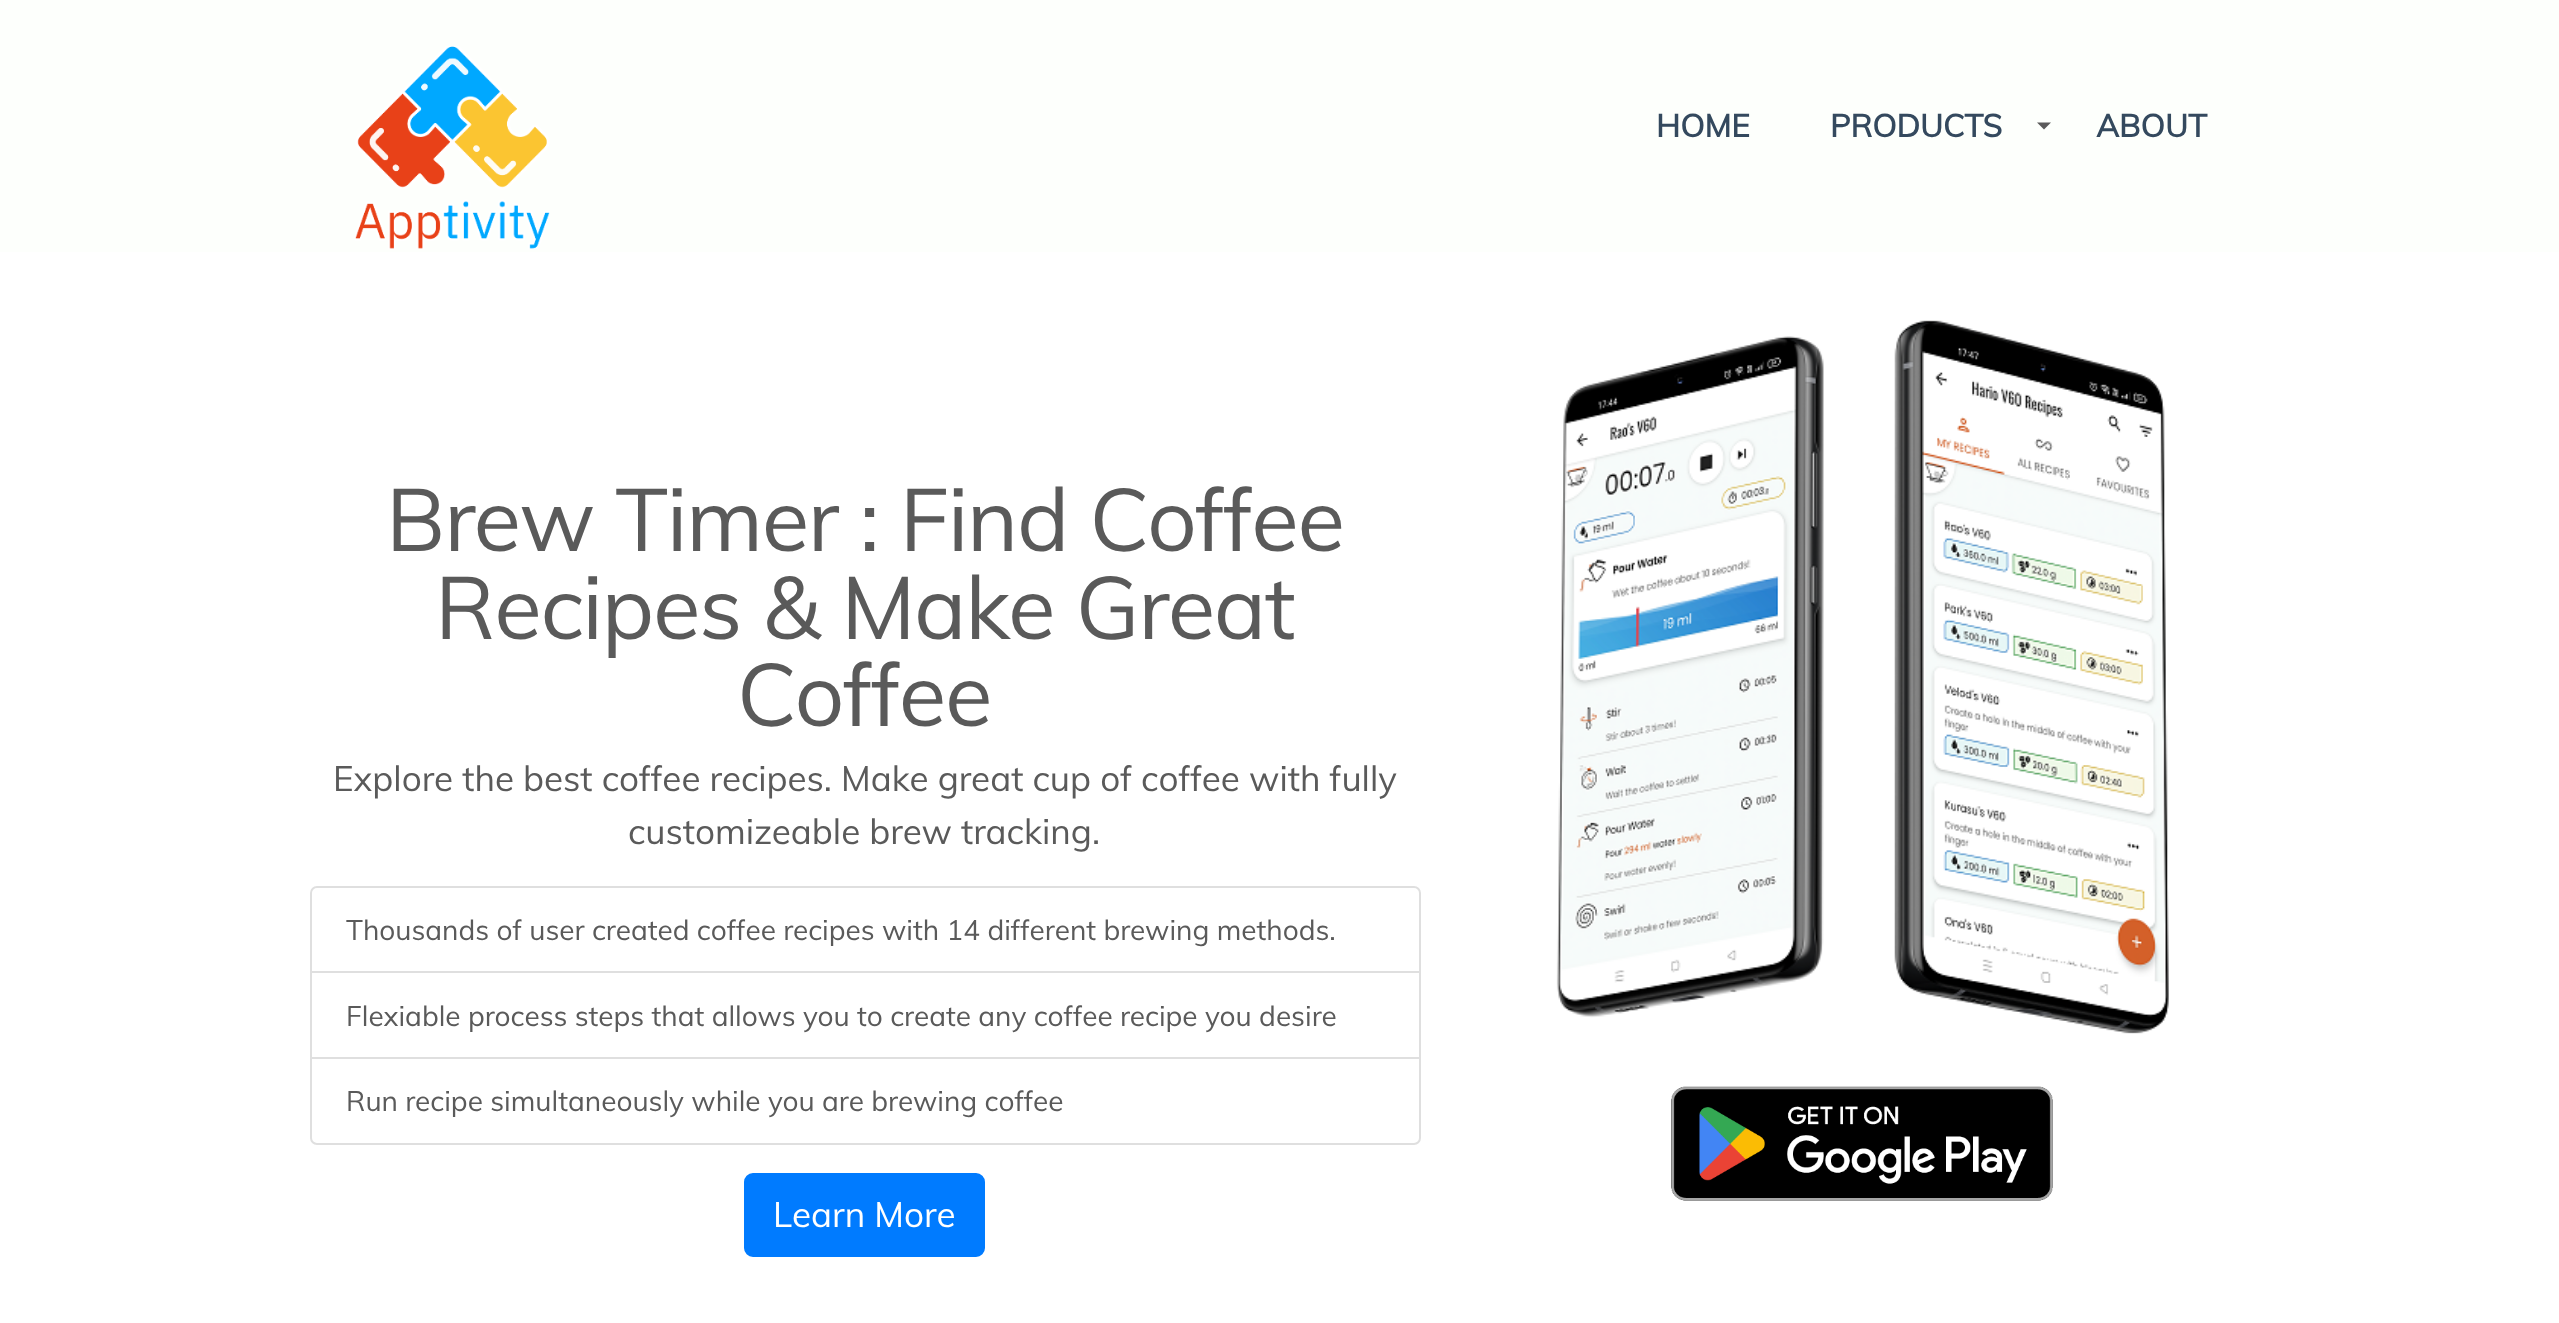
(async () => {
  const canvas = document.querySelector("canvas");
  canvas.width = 2559;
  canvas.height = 1323;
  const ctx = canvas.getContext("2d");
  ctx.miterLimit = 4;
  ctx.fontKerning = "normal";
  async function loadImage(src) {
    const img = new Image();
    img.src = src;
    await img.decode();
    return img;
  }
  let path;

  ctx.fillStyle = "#ffffff";
  ctx.fillRect(0, 0, 2559, 1323);
  ctx.fillStyle = "#fdfffc";
  ctx.fillRect(0, 0, 2559, 252);
  ctx.drawImage(await loadImage("img/1.png"), 355, 46, 195, 203);
  ctx.fillStyle = "#5a5a5a";
  path = new Path2D("M2037 122.5H2051L2044 129.5Z");
  ctx.fill(path);
  ctx.beginPath();
  ctx.roundRect(311, 887, 1109, 85, [6, 6, 0, 0]);
  ctx.strokeStyle = "#dfdfdf";
  ctx.lineWidth = 2;
  ctx.stroke();
  ctx.strokeRect(311, 972, 1109, 86);
  ctx.fillStyle = "#ffffff";
  ctx.beginPath();
  ctx.roundRect(311, 1058, 1109, 86, [0, 0, 6, 6]);
  ctx.fill();
  ctx.stroke();
  ctx.fillStyle = "#007bff";
  ctx.beginPath();
  ctx.roundRect(745, 1174, 239, 82, 8);
  ctx.fill();
  ctx.strokeStyle = "#007bff";
  ctx.stroke();
  ctx.drawImage(await loadImage("img/2.png"), 1556, 320, 613, 714);
  ctx.drawImage(await loadImage("img/3.png"), 1671, 1086, 382, 115);
  ctx.font = "bold 31.5px Muli";
  ctx.fillStyle = "#34495e";
  for (const [text, x, y] of [
    ["HOME", 1656, 137],
    ["PRODUCTS", 1830, 137],
    ["ABOUT", 2096, 137],
  ]) {
    ctx.fillText(text, x, y);
  }
  ctx.letterSpacing = "-1.4px";
  ctx.font = "87.5px Muli";
  ctx.fillStyle = "#5a5a5a";
  for (const [text, x, y] of [
    ["Brew Timer : Find Coffee", 386, 551],
    ["Recipes & Make Great", 435, 639],
    ["Coffee", 737, 726],
  ]) {
    ctx.fillText(text, x, y);
  }
  ctx.letterSpacing = "0px";
  ctx.font = "35px Muli";
  ctx.fillText("Explore the best coffee recipes. Make great cup of coffee with fully", 333, 791);
  ctx.fillText("customizeable brew tracking.", 628, 844);
  ctx.font = "28px Muli";
  for (const [text, x, y] of [
    ["Thousands of user created coffee recipes with 14 different brewing methods.", 346, 940],
    ["Flexiable process steps that allows you to create any coffee recipe you desire", 346, 1026],
    ["Run recipe simultaneously while you are brewing coffee", 346, 1111],
  ]) {
    ctx.fillText(text, x, y);
  }
  ctx.font = "35px Muli";
  ctx.fillStyle = "#ffffff";
  ctx.fillText("Learn More", 773, 1227);
})();
